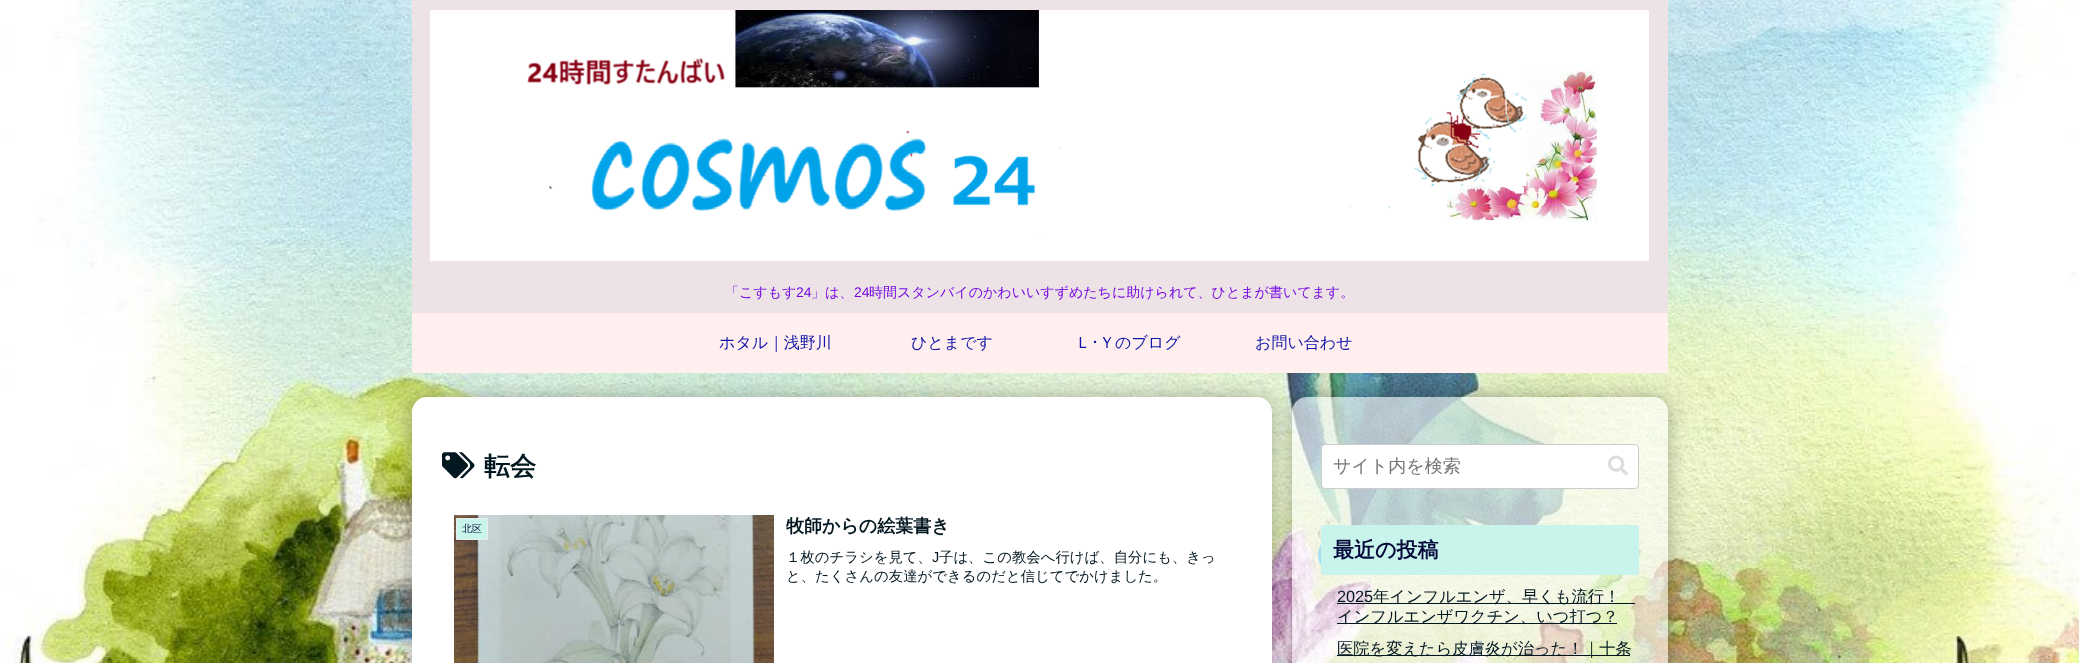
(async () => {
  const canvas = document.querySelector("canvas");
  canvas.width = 2079;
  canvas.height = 663;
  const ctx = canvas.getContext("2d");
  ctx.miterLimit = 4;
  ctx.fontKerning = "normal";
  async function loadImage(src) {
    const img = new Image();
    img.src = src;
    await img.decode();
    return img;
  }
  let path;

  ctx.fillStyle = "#ffffff";
  ctx.fillRect(0, 0, 2079, 663);
  ctx.drawImage(await loadImage("img/1.png"), 5, 0, 2074, 663);
  ctx.fillStyle = "#ede3e7";
  ctx.fillRect(412, 0, 1256, 313);
  ctx.drawImage(await loadImage("img/2.png"), 430, 10, 1219, 251);
  ctx.fillStyle = "#ffefef";
  ctx.fillRect(412, 313, 1256, 60);
  ctx.fillStyle = "#24ade2";
  ctx.beginPath();
  ctx.arc(1338, 555, 20, 0, Math.PI * 2);
  ctx.fill();
  ctx.save();
  path = new Path2D("M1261 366H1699V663H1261ZM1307 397H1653C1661.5 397 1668 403.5 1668 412V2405C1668 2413.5 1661.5 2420 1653 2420H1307C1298.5 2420 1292 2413.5 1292 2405V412C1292 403.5 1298.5 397 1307 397Z");
  ctx.clip(path, "evenodd");
  ctx.fillStyle = "rgba(0, 0, 0, 0.3)";
  ctx.filter = "blur(10px)";
  ctx.beginPath();
  ctx.roundRect(1292, 397, 376, 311, 15);
  ctx.fill();
  ctx.filter = "none";
  ctx.restore();
  ctx.fillStyle = "rgba(255, 255, 255, 0.6)";
  ctx.beginPath();
  ctx.roundRect(1292, 397, 376, 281, 15);
  ctx.fill();
  ctx.fillStyle = "rgba(0, 0, 0, 0.3)";
  ctx.filter = "blur(10px)";
  ctx.beginPath();
  ctx.roundRect(412, 397, 860, 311, 15);
  ctx.fill();
  ctx.filter = "none";
  ctx.fillStyle = "#ffffff";
  ctx.beginPath();
  ctx.roundRect(412, 397, 860, 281, 15);
  ctx.fill();
  ctx.drawImage(await loadImage("img/3.png"), 442, 452, 33, 27);
  ctx.drawImage(await loadImage("img/4.png"), 454, 515, 320, 148);
  ctx.fillStyle = "#c8f4ec";
  ctx.beginPath();
  ctx.rect(456.5, 518.5, 31, 21);
  ctx.fill();
  ctx.strokeStyle = "#eeeeee";
  ctx.stroke();
  ctx.fillStyle = "#ffffff";
  ctx.beginPath();
  ctx.roundRect(1321.5, 444.5, 317, 44, 3.5);
  ctx.fill();
  ctx.strokeStyle = "#cccccc";
  ctx.stroke();
  ctx.drawImage(await loadImage("img/5.png"), 1608, 455, 20, 21);
  ctx.fillStyle = "#c8f4ec";
  ctx.beginPath();
  ctx.roundRect(1321, 525, 318, 50, 2);
  ctx.fill();
  for (const [x, y, w, h, color] of [
    [1337, 603, 298, 1, "#031721"],
    [1337, 623, 280, 1, "#031721"],
    [1337, 655, 293, 1, "#031721"],
  ]) {
    ctx.fillStyle = color;
    ctx.fillRect(x, y, w, h);
  }
  ctx.font = "500 14px WenQuanYi Zen Hei";
  ctx.fillStyle = "#7609e2";
  ctx.fillText("「こすもす", 725, 297);
  ctx.font = "14px Liberation Sans";
  ctx.fillText("24", 796, 297);
  ctx.font = "500 14px WenQuanYi Zen Hei";
  ctx.fillText("」は、", 811, 297);
  ctx.font = "14px Liberation Sans";
  ctx.fillText("24", 854, 297);
  ctx.font = "500 14px WenQuanYi Zen Hei";
  ctx.fillText("時間スタンバイのかわいいすずめたちに助けられて、ひとまが書いてます。", 869, 297);
  ctx.font = "500 16px WenQuanYi Zen Hei";
  ctx.fillStyle = "#1215a8";
  for (const [text, x, y] of [
    ["ホタル｜浅野川", 719, 348],
    ["ひとまです", 911, 348],
    ["Ｌ", 1075, 348],
  ]) {
    ctx.fillText(text, x, y);
  }
  ctx.font = "16px IPAPGothic";
  ctx.fillText("･", 1091, 348);
  ctx.font = "500 16px WenQuanYi Zen Hei";
  ctx.fillText("Ｙのブログ", 1099, 348);
  ctx.fillText("お問い合わせ", 1255, 348);
  ctx.font = "bold 26px WenQuanYi Zen Hei";
  ctx.fillStyle = "#031721";
  ctx.fillText("転会", 484, 475);
  ctx.font = "500 10px WenQuanYi Zen Hei";
  ctx.fillStyle = "#05083a";
  ctx.fillText("北区", 462, 532);
  ctx.font = "bold 18px WenQuanYi Zen Hei";
  ctx.fillStyle = "#031721";
  ctx.fillText("牧師からの絵葉書き", 786, 532);
  ctx.font = "500 14.4px WenQuanYi Zen Hei";
  ctx.fillText("１枚のチラシを見て、", 786, 562);
  ctx.font = "14.4px Liberation Sans";
  ctx.fillText("J", 932, 562);
  ctx.font = "500 14.4px WenQuanYi Zen Hei";
  ctx.fillText("子は、この教会へ行けば、自分にも、きっ", 939, 562);
  ctx.fillText("と、たくさんの友達ができるのだと信じてでかけました。", 786, 581);
  ctx.font = "500 18px WenQuanYi Zen Hei";
  ctx.fillStyle = "#757575";
  ctx.fillText("サイト内を検索", 1333, 472);
  ctx.font = "bold 21px WenQuanYi Zen Hei";
  ctx.fillStyle = "#05083a";
  ctx.fillText("最近の投稿", 1333, 557);
  ctx.font = "16.25px Liberation Sans";
  ctx.fillStyle = "#031721";
  ctx.fillText("2025", 1337, 602);
  ctx.font = "500 16.25px WenQuanYi Zen Hei";
  for (const [text, x, y] of [
    ["年インフルエンザ、早くも流行！", 1373, 602],
    ["インフルエンザワクチン、いつ打つ？", 1337, 622],
    ["医院を変えたら皮膚炎が治った！｜十条", 1337, 654],
  ]) {
    ctx.fillText(text, x, y);
  }
})();
